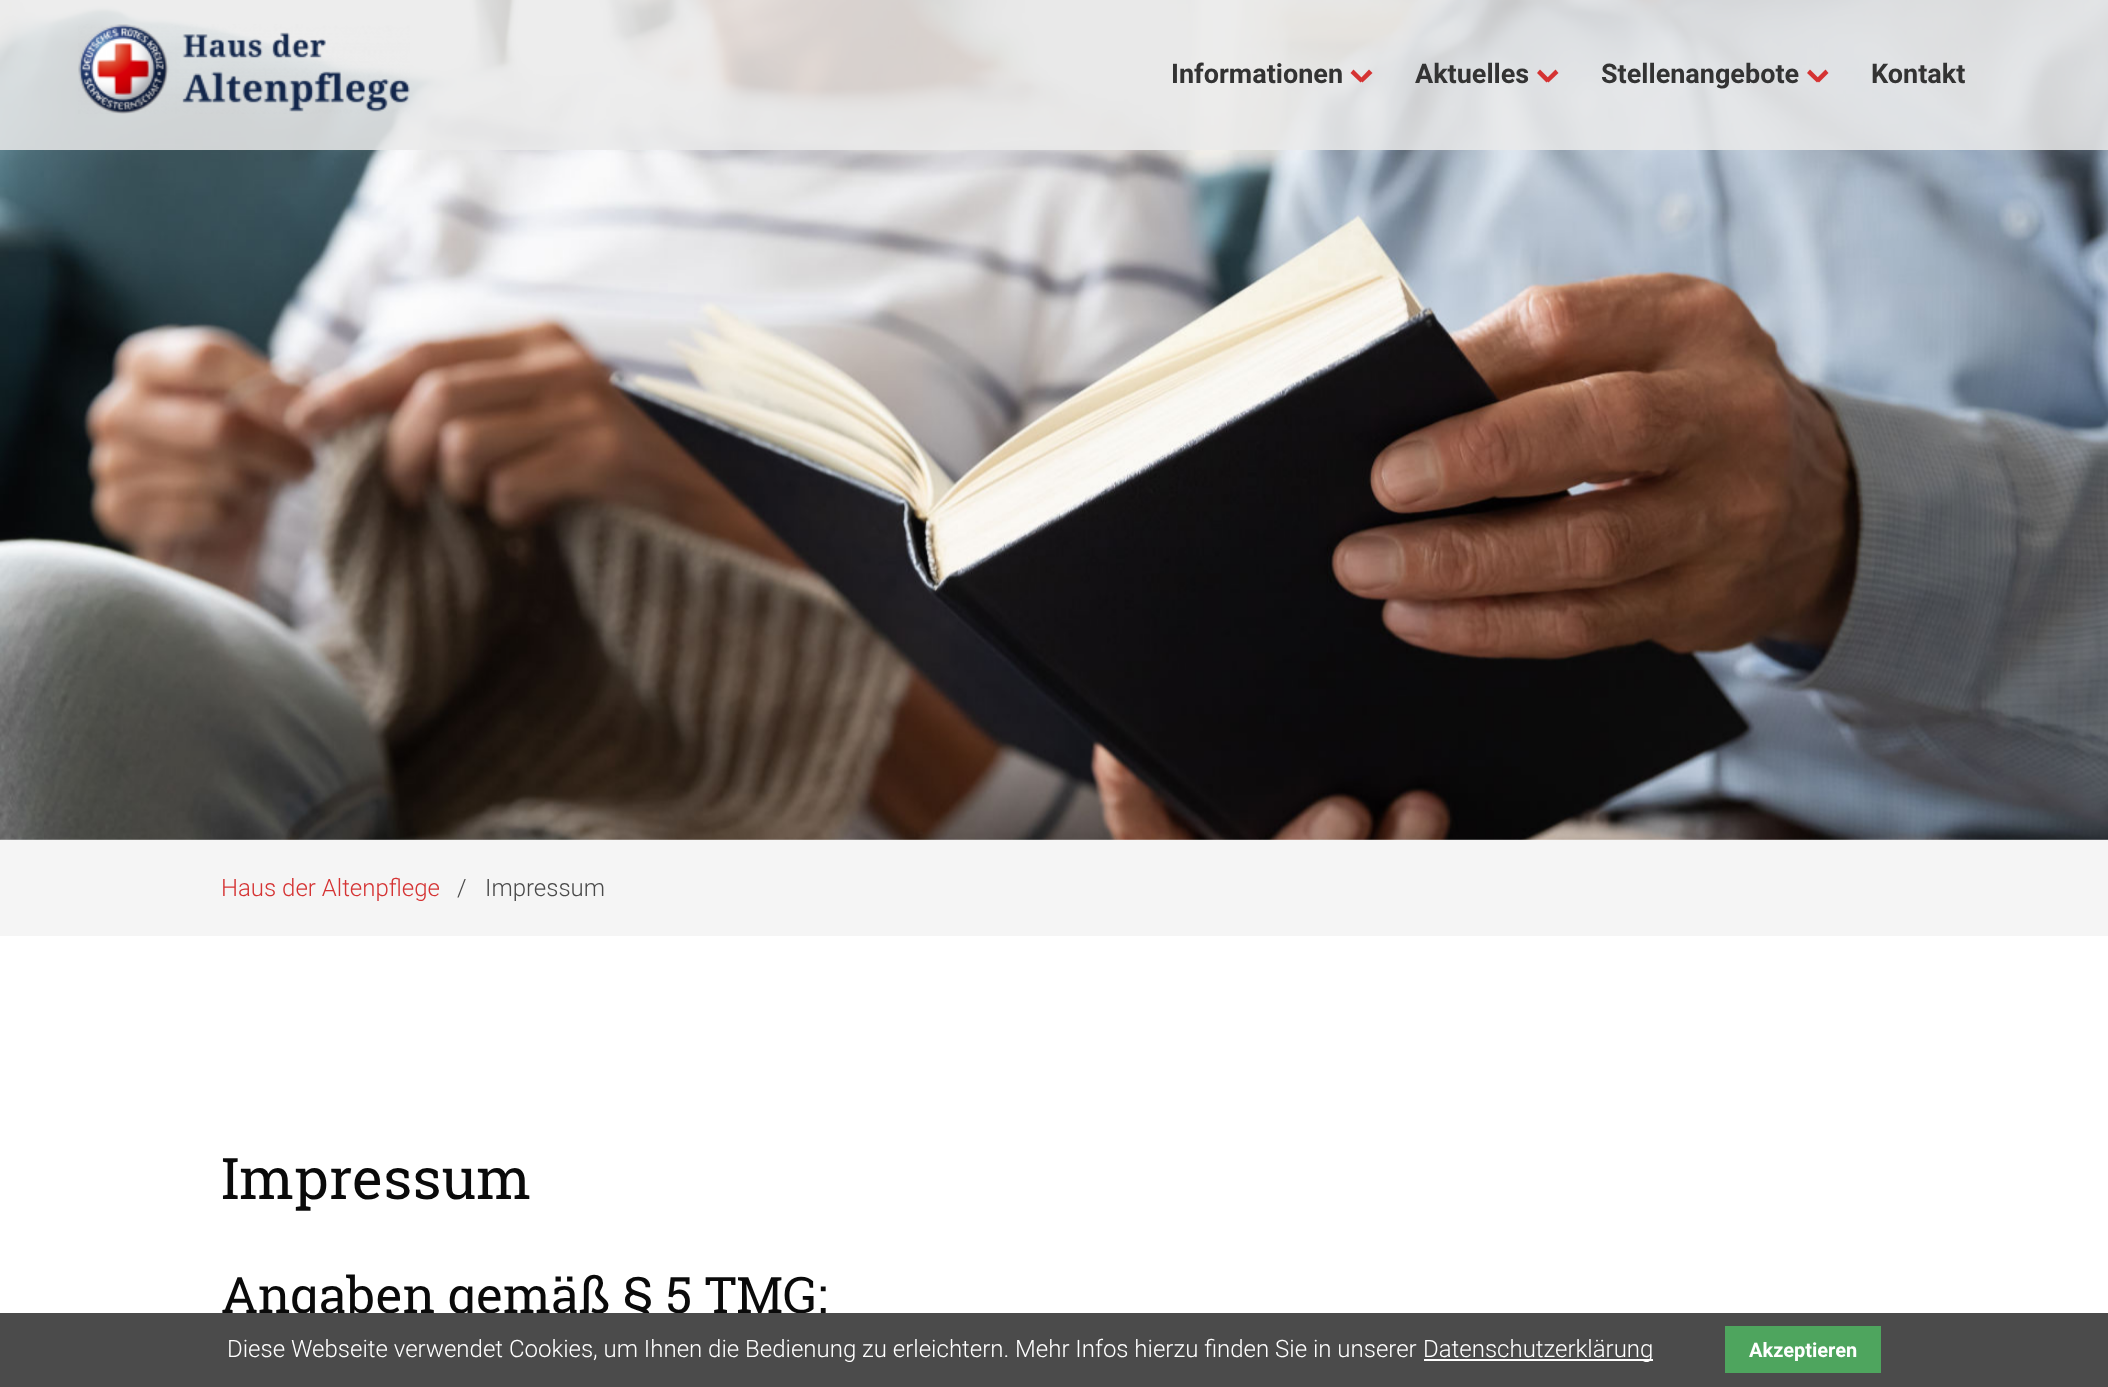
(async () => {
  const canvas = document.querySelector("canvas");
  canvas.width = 2108;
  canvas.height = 1387;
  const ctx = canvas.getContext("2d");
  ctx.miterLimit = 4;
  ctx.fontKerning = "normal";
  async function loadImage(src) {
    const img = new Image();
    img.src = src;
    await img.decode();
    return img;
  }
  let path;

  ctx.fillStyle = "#ffffff";
  ctx.fillRect(0, 0, 2108, 1387);
  ctx.drawImage(await loadImage("img/1.png"), 0, 0, 2108, 840);
  ctx.fillStyle = "rgba(234, 234, 234, 0.85)";
  ctx.fillRect(0, 0, 2108, 150);
  ctx.drawImage(await loadImage("img/2.png"), 78, 24, 332, 90);
  ctx.fillStyle = "#d53333";
  path = new Path2D("M1359.5 79.5L1369 69.5L1372.5 73L1362.5 82.5Z");
  ctx.fill(path);
  path = new Path2D("M1350.5 73L1353.5 69.5L1363.5 79.5L1360.5 82.5Z");
  ctx.fill(path);
  path = new Path2D("M1545.5 79.5L1555.5 69.5L1558.5 73L1548.5 82.5Z");
  ctx.fill(path);
  path = new Path2D("M1537 73L1540 69.5L1550 79.5L1546.5 82.5Z");
  ctx.fill(path);
  path = new Path2D("M1815.5 79.5L1825.5 69.5L1828.5 73L1819 82.5Z");
  ctx.fill(path);
  path = new Path2D("M1807 73L1810 69.5L1820 79.5L1817 82.5Z");
  ctx.fill(path);
  ctx.fillStyle = "#f5f5f5";
  ctx.fillRect(0, 840, 2108, 96);
  ctx.font = "bold 27px Roboto";
  ctx.fillStyle = "#333333";
  for (const [text, x, y] of [
    ["Informationen", 1171, 83],
    ["Aktuelles", 1415, 83],
    ["Stellenangebote", 1601, 83],
    ["Kontakt", 1871, 83],
  ]) {
    ctx.fillText(text, x, y);
  }
  ctx.font = "300 24px Roboto";
  ctx.fillStyle = "#d53333";
  ctx.fillText("Haus der Altenpflege", 221, 896);
  ctx.fillStyle = "#4a4a4a";
  ctx.fillText("/", 457, 896);
  ctx.fillText("Impressum", 485, 896);
  ctx.font = "57.5px Roboto Slab";
  ctx.fillStyle = "#0a0a0a";
  ctx.fillText("Impressum", 221, 1199);
  ctx.font = "50.4px Roboto Slab";
  ctx.fillText("Angaben gemäß § 5 TMG:", 221, 1313);
  ctx.fillStyle = "#4b4b4b";
  ctx.fillRect(0, 1313, 2108, 74);
  ctx.font = "300 24px Roboto";
  ctx.fillStyle = "#ffffff";
  ctx.fillText("Diese Webseite verwendet Cookies, um Ihnen die Bedienung zu erleichtern. Mehr Infos hierzu finden Sie in unserer", 227, 1357);
  ctx.fillRect(1424, 1359, 229, 2);
  ctx.fillText("Datenschutzerklärung", 1423, 1357);
  ctx.fillStyle = "#4ea55e";
  ctx.fillRect(1725, 1326, 156, 47);
  ctx.font = "bold 20px Roboto";
  ctx.fillStyle = "#ffffff";
  ctx.fillText("Akzeptieren", 1749, 1357);
})();
